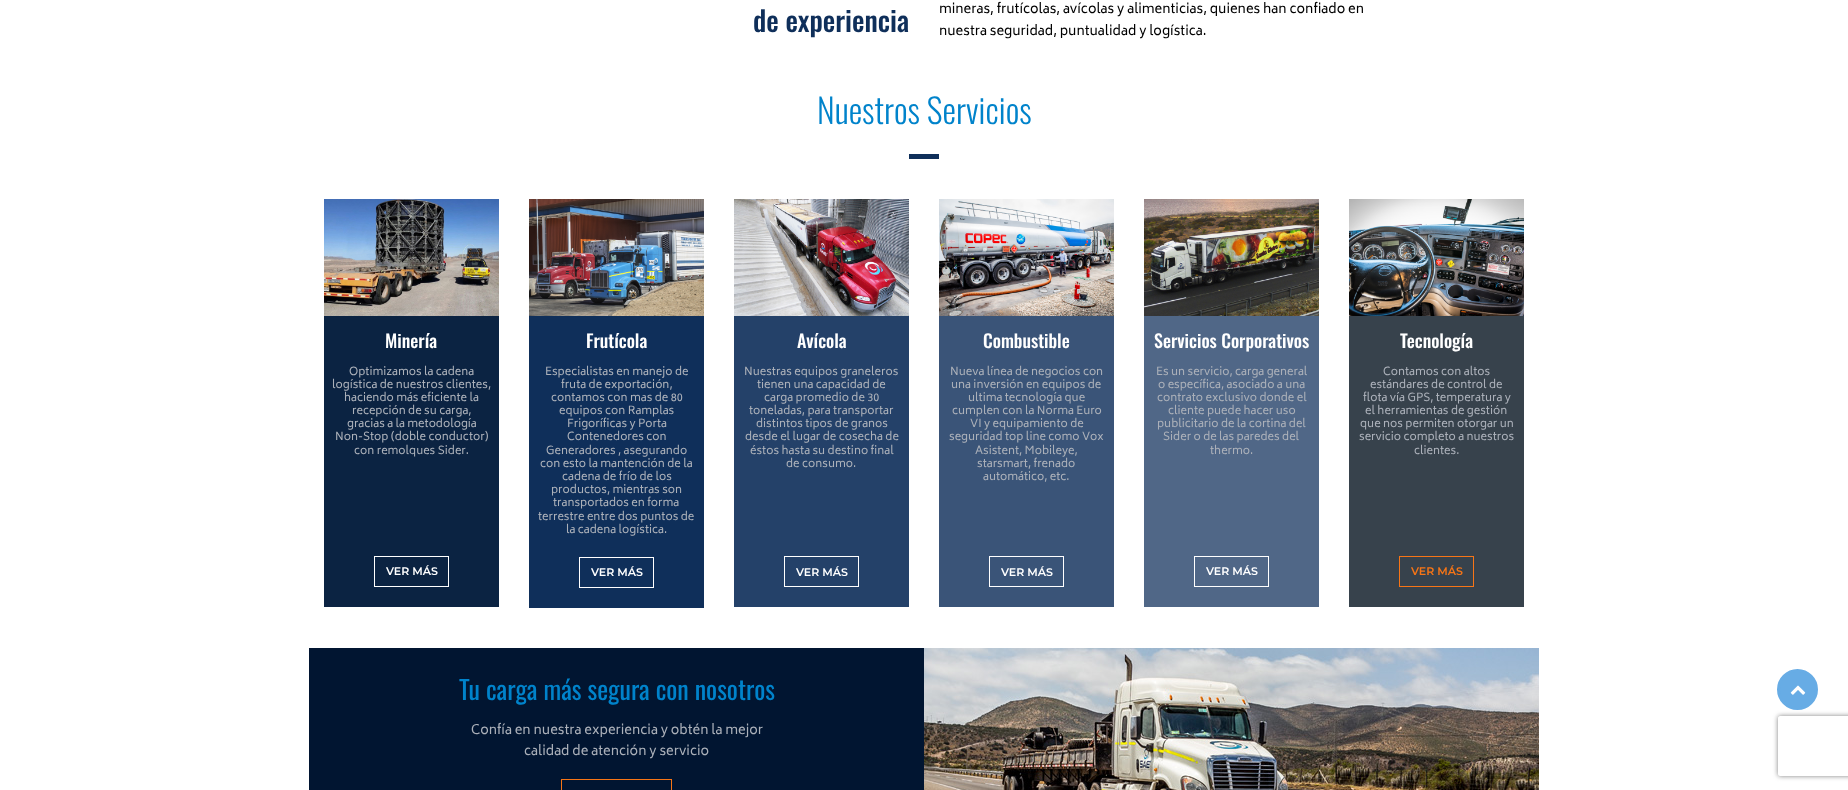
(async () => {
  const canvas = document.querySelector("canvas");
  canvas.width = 1848;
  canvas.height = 790;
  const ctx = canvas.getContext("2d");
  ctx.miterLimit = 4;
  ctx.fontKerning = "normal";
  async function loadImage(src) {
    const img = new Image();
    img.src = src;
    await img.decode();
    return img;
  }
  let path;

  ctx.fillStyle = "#ffffff";
  ctx.fillRect(0, 0, 1848, 790);
  ctx.fillStyle = "#0f2f5a";
  ctx.fillRect(909, 154, 30, 5);
  ctx.drawImage(await loadImage("img/1.png"), 324, 199, 175, 117);
  ctx.fillStyle = "#0b2342";
  ctx.fillRect(324, 316, 175, 291);
  ctx.strokeStyle = "#ffffff";
  ctx.strokeRect(374.5, 556.5, 74, 30);
  ctx.drawImage(await loadImage("img/2.png"), 529, 199, 175, 117);
  ctx.fillStyle = "#0f2f5a";
  ctx.fillRect(529, 316, 175, 292);
  ctx.strokeRect(579.5, 557.5, 74, 30);
  ctx.drawImage(await loadImage("img/3.png"), 734, 199, 175, 117);
  ctx.fillStyle = "#244169";
  ctx.fillRect(734, 316, 175, 291);
  ctx.strokeRect(784.5, 556.5, 74, 30);
  ctx.drawImage(await loadImage("img/4.png"), 939, 199, 175, 117);
  ctx.fillStyle = "#3a5478";
  ctx.fillRect(939, 316, 175, 291);
  ctx.strokeRect(989.5, 556.5, 74, 30);
  ctx.drawImage(await loadImage("img/5.png"), 1144, 199, 175, 117);
  ctx.fillStyle = "#506787";
  ctx.fillRect(1144, 316, 175, 291);
  ctx.strokeRect(1194.5, 556.5, 74, 30);
  ctx.drawImage(await loadImage("img/6.png"), 1349, 199, 175, 117);
  ctx.fillStyle = "#37424c";
  ctx.fillRect(1349, 316, 175, 291);
  ctx.strokeStyle = "#f77516";
  ctx.strokeRect(1399.5, 556.5, 74, 30);
  ctx.fillStyle = "#011531";
  ctx.fillRect(309, 648, 615, 142);
  ctx.strokeRect(561.5, 779.5, 110, 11);
  ctx.drawImage(await loadImage("img/7.png"), 924, 648, 615, 142);
  ctx.save();
  path = new Path2D("M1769 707H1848V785H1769ZM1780 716H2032C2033 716 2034 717 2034 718V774C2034 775 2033 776 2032 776H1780C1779 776 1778 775 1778 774V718C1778 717 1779 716 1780 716Z");
  ctx.clip(path, "evenodd");
  ctx.fillStyle = "#808080";
  ctx.filter = "blur(2.5px)";
  ctx.beginPath();
  ctx.roundRect(1778, 716, 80, 60, 2);
  ctx.fill();
  ctx.filter = "none";
  ctx.restore();
  ctx.fillStyle = "#67ace5";
  ctx.beginPath();
  ctx.arc(1797.5, 689.5, 19, 0, Math.PI * 2);
  ctx.fill();
  ctx.strokeStyle = "#67ace5";
  ctx.lineWidth = 3;
  ctx.stroke();
  ctx.drawImage(await loadImage("img/8.png"), 1790, 685, 16, 10);
  ctx.font = "500 28px Oswald";
  ctx.fillStyle = "#0f2f5a";
  ctx.fillText("de experiencia", 753, 32);
  ctx.font = "13px Biryani";
  ctx.fillStyle = "#000000";
  ctx.fillText("mineras, frutícolas, avícolas y alimenticias, quienes han confiado en", 939, 13);
  ctx.fillText("nuestra seguridad, puntualidad y logística.", 939, 35);
  ctx.font = "300 34px Oswald";
  ctx.fillStyle = "#0083cb";
  ctx.fillText("Nuestros Servicios", 817, 124);
  ctx.font = "500 18px Oswald";
  ctx.fillStyle = "#ffffff";
  ctx.fillText("Minería", 385, 348);
  ctx.font = "11px Biryani";
  ctx.fillStyle = "#abb0b9";
  for (const [text, x, y] of [
    ["Optimizamos la cadena", 349, 375],
    ["logística de nuestros clientes,", 332, 388],
    ["haciendo más eficiente la", 344, 401],
    ["recepción de su carga,", 352, 414],
    ["gracias a la metodología", 347, 427],
    ["Non-Stop (doble conductor)", 335, 440],
    ["con remolques Sider.", 354, 454],
  ]) {
    ctx.fillText(text, x, y);
  }
  ctx.font = "600 11px Montserrat";
  ctx.fillStyle = "#ffffff";
  ctx.fillText("VER MÁS", 386, 575);
  ctx.font = "500 18px Oswald";
  ctx.fillText("Frutícola", 586, 348);
  ctx.font = "11px Biryani";
  ctx.fillStyle = "#abb0b9";
  for (const [text, x, y] of [
    ["Especialistas en manejo de", 545, 375],
    ["fruta de exportación,", 561, 388],
    ["contamos con mas de 80", 551, 401],
    ["equipos con Ramplas", 559, 414],
    ["Frigoríficas y Porta", 567, 427],
    ["Contenedores con", 567, 440],
    ["Generadores , asegurando", 546, 454],
    ["con esto la mantención de la", 540, 467],
    ["cadena de frío de los", 562, 480],
    ["productos, mientras son", 551, 493],
    ["transportados en forma", 553, 506],
    ["terrestre entre dos puntos de", 538, 520],
    ["la cadena logística.", 566, 533],
  ]) {
    ctx.fillText(text, x, y);
  }
  ctx.font = "600 11px Montserrat";
  ctx.fillStyle = "#ffffff";
  ctx.fillText("VER MÁS", 591, 576);
  ctx.font = "500 18px Oswald";
  ctx.fillText("Avícola", 797, 348);
  ctx.font = "11px Biryani";
  ctx.fillStyle = "#abb0b9";
  for (const [text, x, y] of [
    ["Nuestras equipos graneleros", 744, 375],
    ["tienen una capacidad de", 757, 388],
    ["carga promedio de 30", 764, 401],
    ["toneladas, para transportar", 749, 414],
    ["distintos tipos de granos", 756, 427],
    ["desde el lugar de cosecha de", 745, 440],
    ["éstos hasta su destino final", 750, 454],
    ["de consumo.", 786, 467],
  ]) {
    ctx.fillText(text, x, y);
  }
  ctx.font = "600 11px Montserrat";
  ctx.fillStyle = "#ffffff";
  ctx.fillText("VER MÁS", 796, 576);
  ctx.font = "500 18px Oswald";
  ctx.fillText("Combustible", 983, 348);
  ctx.font = "11px Biryani";
  ctx.fillStyle = "#abb0b9";
  for (const [text, x, y] of [
    ["Nueva línea de negocios con", 950, 375],
    ["una inversión en equipos de", 951, 388],
    ["ultima tecnología que", 968, 401],
    ["cumplen con la Norma Euro", 952, 414],
    ["VI y equipamiento de", 970, 427],
    ["seguridad top line como Vox", 949, 440],
    ["Asistent, Mobileye,", 975, 454],
    ["starsmart, frenado", 977, 467],
    ["automático, etc.", 983, 480],
  ]) {
    ctx.fillText(text, x, y);
  }
  ctx.font = "600 11px Montserrat";
  ctx.fillStyle = "#ffffff";
  ctx.fillText("VER MÁS", 1001, 576);
  ctx.font = "500 18px Oswald";
  ctx.fillText("Servicios Corporativos", 1154, 348);
  ctx.font = "11px Biryani";
  ctx.fillStyle = "#abb0b9";
  for (const [text, x, y] of [
    ["Es un servicio, carga general", 1156, 375],
    ["o específica, asociado a una", 1158, 388],
    ["contrato exclusivo donde el", 1157, 401],
    ["cliente puede hacer uso", 1168, 414],
    ["publicitario de la cortina del", 1157, 427],
    ["Sider o de las paredes del", 1163, 440],
    ["thermo.", 1210, 454],
  ]) {
    ctx.fillText(text, x, y);
  }
  ctx.font = "600 11px Montserrat";
  ctx.fillStyle = "#ffffff";
  ctx.fillText("VER MÁS", 1206, 575);
  ctx.font = "500 18px Oswald";
  ctx.fillText("Tecnología", 1400, 348);
  ctx.font = "11px Biryani";
  ctx.fillStyle = "#abb0b9";
  for (const [text, x, y] of [
    ["Contamos con altos", 1383, 375],
    ["estándares de control de", 1370, 388],
    ["flota vía GPS, temperatura y", 1363, 401],
    ["el herramientas de gestión", 1365, 414],
    ["que nos permiten otorgar un", 1360, 427],
    ["servicio completo a nuestros", 1359, 440],
    ["clientes.", 1414, 454],
  ]) {
    ctx.fillText(text, x, y);
  }
  ctx.font = "600 11px Montserrat";
  ctx.fillStyle = "#f77516";
  ctx.fillText("VER MÁS", 1411, 575);
  ctx.font = "26px Oswald";
  ctx.fillStyle = "#0083cb";
  ctx.fillText("Tu carga más segura con nosotros", 459, 700);
  ctx.font = "13px Biryani";
  ctx.fillStyle = "#abb0b9";
  ctx.fillText("Confía en nuestra experiencia y obtén la mejor", 471, 734);
  ctx.fillText("calidad de atención y servicio", 524, 755);
})();
